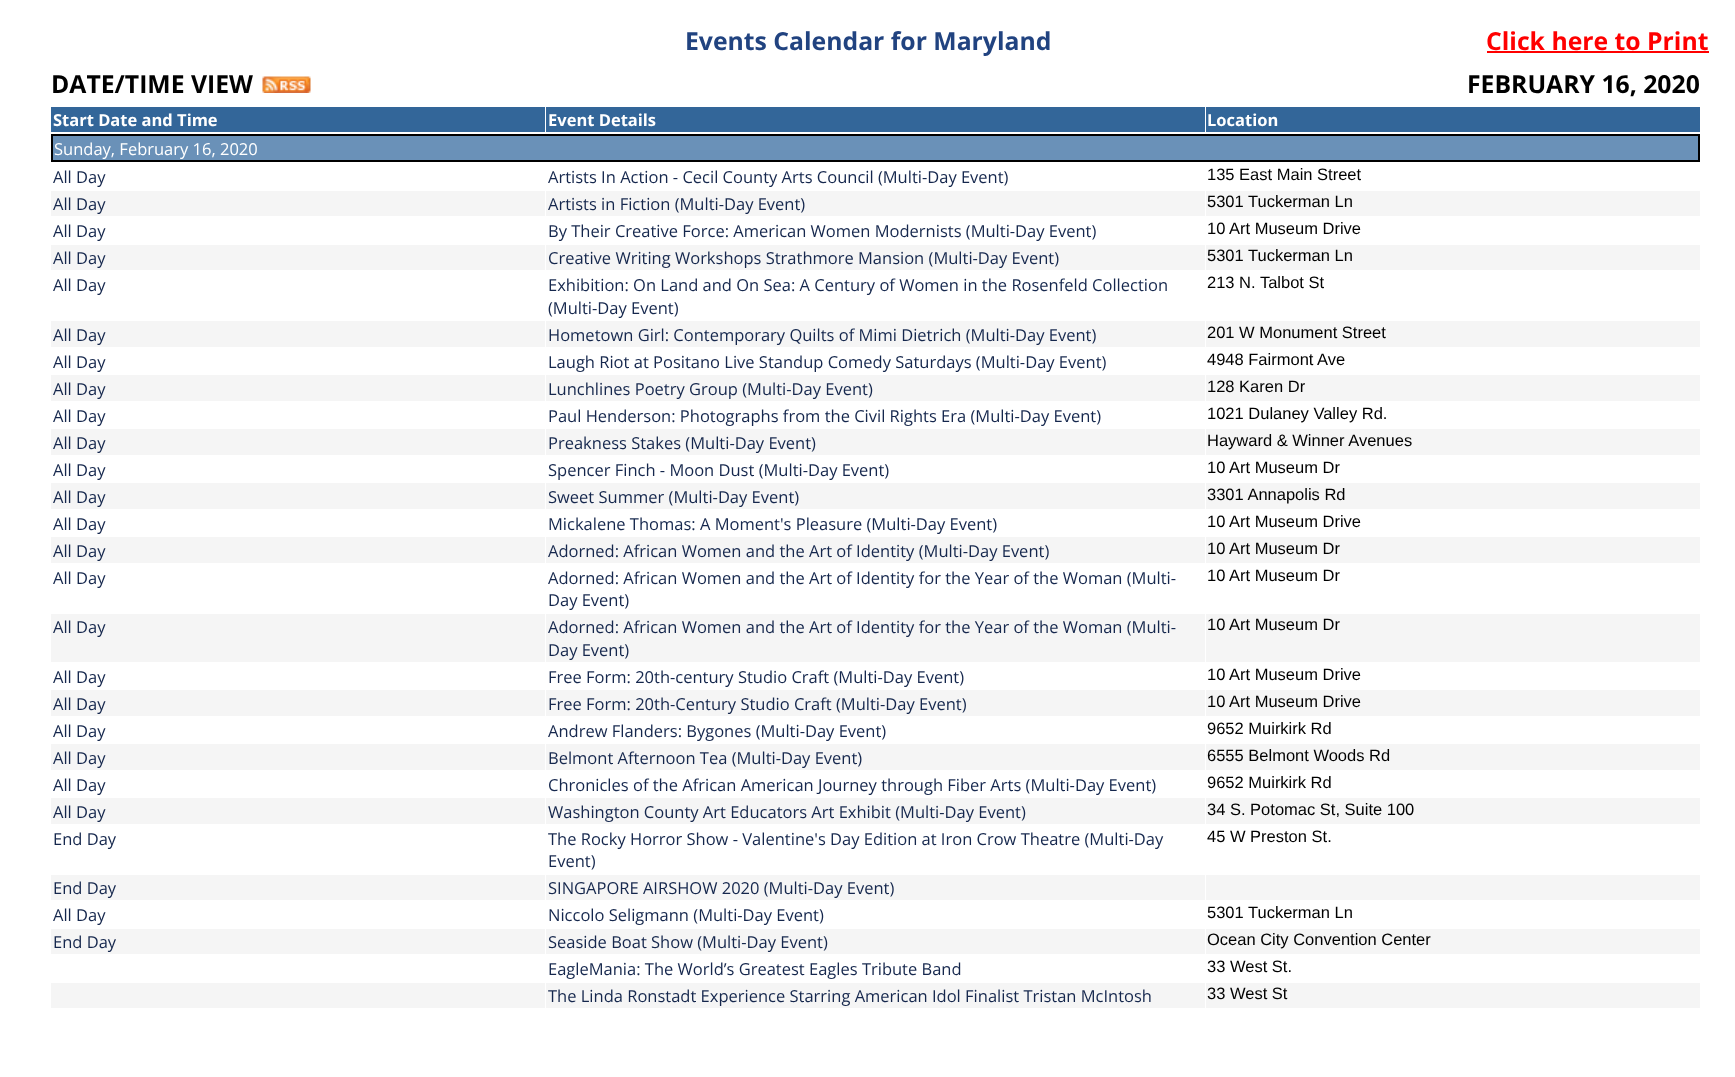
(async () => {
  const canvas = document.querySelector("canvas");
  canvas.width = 1735;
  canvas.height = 1077;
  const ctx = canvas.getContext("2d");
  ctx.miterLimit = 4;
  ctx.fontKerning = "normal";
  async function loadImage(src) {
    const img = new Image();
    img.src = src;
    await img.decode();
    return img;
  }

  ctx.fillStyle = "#ffffff";
  ctx.fillRect(0, 0, 1735, 1077);
  ctx.fillStyle = "#ff0000";
  ctx.fillRect(1487, 51, 222, 2);
  ctx.drawImage(await loadImage("img/1.png"), 262, 76, 49, 17);
  for (const [x, y, w, h, color] of [
    [51, 107, 494, 25, "#336699"],
    [546, 107, 659, 25, "#336699"],
    [1206, 107, 494, 25, "#336699"],
  ]) {
    ctx.fillStyle = color;
    ctx.fillRect(x, y, w, h);
  }
  ctx.fillStyle = "#6a91b8";
  ctx.beginPath();
  ctx.rect(52, 135, 1647, 26);
  ctx.fill();
  ctx.strokeStyle = "#000000";
  ctx.lineWidth = 2;
  ctx.stroke();
  for (const [x, y, w, h, color] of [
    [51, 191, 494, 25, "#f5f5f5"],
    [546, 191, 659, 25, "#f5f5f5"],
    [1206, 191, 494, 25, "#f5f5f5"],
    [51, 245, 494, 25, "#f5f5f5"],
    [546, 245, 659, 25, "#f5f5f5"],
    [1206, 245, 494, 25, "#f5f5f5"],
    [51, 321, 494, 26, "#f5f5f5"],
    [546, 321, 659, 26, "#f5f5f5"],
    [1206, 321, 494, 26, "#f5f5f5"],
    [51, 375, 494, 26, "#f5f5f5"],
    [546, 375, 659, 26, "#f5f5f5"],
    [1206, 375, 494, 26, "#f5f5f5"],
    [51, 429, 494, 26, "#f5f5f5"],
    [546, 429, 659, 26, "#f5f5f5"],
    [1206, 429, 494, 26, "#f5f5f5"],
    [51, 483, 494, 26, "#f5f5f5"],
    [546, 483, 659, 26, "#f5f5f5"],
    [1206, 483, 494, 26, "#f5f5f5"],
    [51, 537, 494, 26, "#f5f5f5"],
    [546, 537, 659, 26, "#f5f5f5"],
    [1206, 537, 494, 26, "#f5f5f5"],
    [51, 614, 494, 48, "#f5f5f5"],
    [546, 614, 659, 48, "#f5f5f5"],
    [1206, 614, 494, 48, "#f5f5f5"],
    [51, 690, 494, 26, "#f5f5f5"],
    [546, 690, 659, 26, "#f5f5f5"],
    [1206, 690, 494, 26, "#f5f5f5"],
    [51, 744, 494, 26, "#f5f5f5"],
    [546, 744, 659, 26, "#f5f5f5"],
    [1206, 744, 494, 26, "#f5f5f5"],
    [51, 798, 494, 26, "#f5f5f5"],
    [546, 798, 659, 26, "#f5f5f5"],
    [1206, 798, 494, 26, "#f5f5f5"],
    [51, 875, 494, 25, "#f5f5f5"],
    [546, 875, 659, 25, "#f5f5f5"],
    [1206, 875, 494, 25, "#f5f5f5"],
    [51, 929, 494, 25, "#f5f5f5"],
    [546, 929, 659, 25, "#f5f5f5"],
    [1206, 929, 494, 25, "#f5f5f5"],
    [51, 983, 494, 25, "#f5f5f5"],
    [546, 983, 659, 25, "#f5f5f5"],
    [1206, 983, 494, 25, "#f5f5f5"],
  ]) {
    ctx.fillStyle = color;
    ctx.fillRect(x, y, w, h);
  }
  ctx.font = "bold 24.75px Open Sans";
  ctx.fillStyle = "#214380";
  ctx.fillText("Events Calendar for Maryland", 685, 50);
  ctx.fillStyle = "#ff0000";
  ctx.fillText("Click here to Print", 1486, 50);
  ctx.fillStyle = "#000000";
  ctx.fillText("DATE/TIME VIEW", 51, 93);
  ctx.fillText("FEBRUARY 16, 2020", 1467, 93);
  ctx.font = "bold 16.5px Open Sans";
  ctx.fillStyle = "#ffffff";
  for (const [text, x, y] of [
    ["Start Date and Time", 53, 126],
    ["Event Details", 548, 126],
    ["Location", 1207, 126],
  ]) {
    ctx.fillText(text, x, y);
  }
  ctx.font = "16.5px Open Sans";
  ctx.fillText("Sunday, February 16, 2020", 54, 155);
  ctx.fillStyle = "#15274d";
  ctx.fillText("All Day", 53, 183);
  ctx.fillText("Artists In Action - Cecil County Arts Council (Multi-Day Event)", 548, 183);
  ctx.font = "16.5px Liberation Sans";
  ctx.fillStyle = "#000000";
  ctx.fillText("135 East Main Street", 1207, 180);
  ctx.font = "16.5px Open Sans";
  ctx.fillStyle = "#15274d";
  ctx.fillText("All Day", 53, 210);
  ctx.fillText("Artists in Fiction (Multi-Day Event)", 548, 210);
  ctx.font = "16.5px Liberation Sans";
  ctx.fillStyle = "#000000";
  ctx.fillText("5301 Tuckerman Ln", 1207, 207);
  ctx.font = "16.5px Open Sans";
  ctx.fillStyle = "#15274d";
  ctx.fillText("All Day", 53, 237);
  ctx.fillText("By Their Creative Force: American Women Modernists (Multi-Day Event)", 548, 237);
  ctx.font = "16.5px Liberation Sans";
  ctx.fillStyle = "#000000";
  ctx.fillText("10 Art Museum Drive", 1207, 234);
  ctx.font = "16.5px Open Sans";
  ctx.fillStyle = "#15274d";
  ctx.fillText("All Day", 53, 264);
  ctx.fillText("Creative Writing Workshops Strathmore Mansion (Multi-Day Event)", 548, 264);
  ctx.font = "16.5px Liberation Sans";
  ctx.fillStyle = "#000000";
  ctx.fillText("5301 Tuckerman Ln", 1207, 261);
  ctx.font = "16.5px Open Sans";
  ctx.fillStyle = "#15274d";
  for (const [text, x, y] of [
    ["All Day", 53, 291],
    ["Exhibition: On Land and On Sea: A Century of Women in the Rosenfeld Collection", 548, 291],
    ["(Multi-Day Event)", 548, 314],
  ]) {
    ctx.fillText(text, x, y);
  }
  ctx.font = "16.5px Liberation Sans";
  ctx.fillStyle = "#000000";
  ctx.fillText("213 N. Talbot St", 1207, 288);
  ctx.font = "16.5px Open Sans";
  ctx.fillStyle = "#15274d";
  ctx.fillText("All Day", 53, 341);
  ctx.fillText("Hometown Girl: Contemporary Quilts of Mimi Dietrich (Multi-Day Event)", 548, 341);
  ctx.font = "16.5px Liberation Sans";
  ctx.fillStyle = "#000000";
  ctx.fillText("201 W Monument Street", 1207, 338);
  ctx.font = "16.5px Open Sans";
  ctx.fillStyle = "#15274d";
  ctx.fillText("All Day", 53, 368);
  ctx.fillText("Laugh Riot at Positano Live Standup Comedy Saturdays (Multi-Day Event)", 548, 368);
  ctx.font = "16.5px Liberation Sans";
  ctx.fillStyle = "#000000";
  ctx.fillText("4948 Fairmont Ave", 1207, 365);
  ctx.font = "16.5px Open Sans";
  ctx.fillStyle = "#15274d";
  ctx.fillText("All Day", 53, 395);
  ctx.fillText("Lunchlines Poetry Group (Multi-Day Event)", 548, 395);
  ctx.font = "16.5px Liberation Sans";
  ctx.fillStyle = "#000000";
  ctx.fillText("128 Karen Dr", 1207, 392);
  ctx.font = "16.5px Open Sans";
  ctx.fillStyle = "#15274d";
  ctx.fillText("All Day", 53, 422);
  ctx.fillText("Paul Henderson: Photographs from the Civil Rights Era (Multi-Day Event)", 548, 422);
  ctx.font = "16.5px Liberation Sans";
  ctx.fillStyle = "#000000";
  ctx.fillText("1021 Dulaney Valley Rd.", 1207, 419);
  ctx.font = "16.5px Open Sans";
  ctx.fillStyle = "#15274d";
  ctx.fillText("All Day", 53, 449);
  ctx.fillText("Preakness Stakes (Multi-Day Event)", 548, 449);
  ctx.font = "16.5px Liberation Sans";
  ctx.fillStyle = "#000000";
  ctx.fillText("Hayward & Winner Avenues", 1207, 446);
  ctx.font = "16.5px Open Sans";
  ctx.fillStyle = "#15274d";
  ctx.fillText("All Day", 53, 476);
  ctx.fillText("Spencer Finch - Moon Dust (Multi-Day Event)", 548, 476);
  ctx.font = "16.5px Liberation Sans";
  ctx.fillStyle = "#000000";
  ctx.fillText("10 Art Museum Dr", 1207, 473);
  ctx.font = "16.5px Open Sans";
  ctx.fillStyle = "#15274d";
  ctx.fillText("All Day", 53, 503);
  ctx.fillText("Sweet Summer (Multi-Day Event)", 548, 503);
  ctx.font = "16.5px Liberation Sans";
  ctx.fillStyle = "#000000";
  ctx.fillText("3301 Annapolis Rd", 1207, 500);
  ctx.font = "16.5px Open Sans";
  ctx.fillStyle = "#15274d";
  ctx.fillText("All Day", 53, 530);
  ctx.fillText("Mickalene Thomas: A Moment's Pleasure (Multi-Day Event)", 548, 530);
  ctx.font = "16.5px Liberation Sans";
  ctx.fillStyle = "#000000";
  ctx.fillText("10 Art Museum Drive", 1207, 527);
  ctx.font = "16.5px Open Sans";
  ctx.fillStyle = "#15274d";
  ctx.fillText("All Day", 53, 557);
  ctx.fillText("Adorned: African Women and the Art of Identity (Multi-Day Event)", 548, 557);
  ctx.font = "16.5px Liberation Sans";
  ctx.fillStyle = "#000000";
  ctx.fillText("10 Art Museum Dr", 1207, 554);
  ctx.font = "16.5px Open Sans";
  ctx.fillStyle = "#15274d";
  for (const [text, x, y] of [
    ["All Day", 53, 584],
    ["Adorned: African Women and the Art of Identity for the Year of the Woman (Multi-", 548, 584],
    ["Day Event)", 548, 606],
  ]) {
    ctx.fillText(text, x, y);
  }
  ctx.font = "16.5px Liberation Sans";
  ctx.fillStyle = "#000000";
  ctx.fillText("10 Art Museum Dr", 1207, 581);
  ctx.font = "16.5px Open Sans";
  ctx.fillStyle = "#15274d";
  for (const [text, x, y] of [
    ["All Day", 53, 633],
    ["Adorned: African Women and the Art of Identity for the Year of the Woman (Multi-", 548, 633],
    ["Day Event)", 548, 656],
  ]) {
    ctx.fillText(text, x, y);
  }
  ctx.font = "16.5px Liberation Sans";
  ctx.fillStyle = "#000000";
  ctx.fillText("10 Art Museum Dr", 1207, 630);
  ctx.font = "16.5px Open Sans";
  ctx.fillStyle = "#15274d";
  ctx.fillText("All Day", 53, 683);
  ctx.fillText("Free Form: 20th-century Studio Craft (Multi-Day Event)", 548, 683);
  ctx.font = "16.5px Liberation Sans";
  ctx.fillStyle = "#000000";
  ctx.fillText("10 Art Museum Drive", 1207, 680);
  ctx.font = "16.5px Open Sans";
  ctx.fillStyle = "#15274d";
  ctx.fillText("All Day", 53, 710);
  ctx.fillText("Free Form: 20th-Century Studio Craft (Multi-Day Event)", 548, 710);
  ctx.font = "16.5px Liberation Sans";
  ctx.fillStyle = "#000000";
  ctx.fillText("10 Art Museum Drive", 1207, 707);
  ctx.font = "16.5px Open Sans";
  ctx.fillStyle = "#15274d";
  ctx.fillText("All Day", 53, 737);
  ctx.fillText("Andrew Flanders: Bygones (Multi-Day Event)", 548, 737);
  ctx.font = "16.5px Liberation Sans";
  ctx.fillStyle = "#000000";
  ctx.fillText("9652 Muirkirk Rd", 1207, 734);
  ctx.font = "16.5px Open Sans";
  ctx.fillStyle = "#15274d";
  ctx.fillText("All Day", 53, 764);
  ctx.fillText("Belmont Afternoon Tea (Multi-Day Event)", 548, 764);
  ctx.font = "16.5px Liberation Sans";
  ctx.fillStyle = "#000000";
  ctx.fillText("6555 Belmont Woods Rd", 1207, 761);
  ctx.font = "16.5px Open Sans";
  ctx.fillStyle = "#15274d";
  ctx.fillText("All Day", 53, 791);
  ctx.fillText("Chronicles of the African American Journey through Fiber Arts (Multi-Day Event)", 548, 791);
  ctx.font = "16.5px Liberation Sans";
  ctx.fillStyle = "#000000";
  ctx.fillText("9652 Muirkirk Rd", 1207, 788);
  ctx.font = "16.5px Open Sans";
  ctx.fillStyle = "#15274d";
  ctx.fillText("All Day", 53, 818);
  ctx.fillText("Washington County Art Educators Art Exhibit (Multi-Day Event)", 548, 818);
  ctx.font = "16.5px Liberation Sans";
  ctx.fillStyle = "#000000";
  ctx.fillText("34 S. Potomac St, Suite 100", 1207, 815);
  ctx.font = "16.5px Open Sans";
  ctx.fillStyle = "#15274d";
  for (const [text, x, y] of [
    ["End Day", 53, 845],
    ["The Rocky Horror Show - Valentine's Day Edition at Iron Crow Theatre (Multi-Day", 548, 845],
    ["Event)", 548, 867],
  ]) {
    ctx.fillText(text, x, y);
  }
  ctx.font = "16.5px Liberation Sans";
  ctx.fillStyle = "#000000";
  ctx.fillText("45 W Preston St.", 1207, 842);
  ctx.font = "16.5px Open Sans";
  ctx.fillStyle = "#15274d";
  for (const [text, x, y] of [
    ["End Day", 53, 894],
    ["SINGAPORE AIRSHOW 2020 (Multi-Day Event)", 548, 894],
    ["All Day", 53, 921],
    ["Niccolo Seligmann (Multi-Day Event)", 548, 921],
  ]) {
    ctx.fillText(text, x, y);
  }
  ctx.font = "16.5px Liberation Sans";
  ctx.fillStyle = "#000000";
  ctx.fillText("5301 Tuckerman Ln", 1207, 918);
  ctx.font = "16.5px Open Sans";
  ctx.fillStyle = "#15274d";
  ctx.fillText("End Day", 53, 948);
  ctx.fillText("Seaside Boat Show (Multi-Day Event)", 548, 948);
  ctx.font = "16.5px Liberation Sans";
  ctx.fillStyle = "#000000";
  ctx.fillText("Ocean City Convention Center", 1207, 945);
  ctx.font = "16.5px Open Sans";
  ctx.fillStyle = "#15274d";
  ctx.fillText("EagleMania: The World’s Greatest Eagles Tribute Band", 548, 975);
  ctx.font = "16.5px Liberation Sans";
  ctx.fillStyle = "#000000";
  ctx.fillText("33 West St.", 1207, 972);
  ctx.font = "16.5px Open Sans";
  ctx.fillStyle = "#15274d";
  ctx.fillText("The Linda Ronstadt Experience Starring American Idol Finalist Tristan McIntosh", 548, 1002);
  ctx.font = "16.5px Liberation Sans";
  ctx.fillStyle = "#000000";
  ctx.fillText("33 West St", 1207, 999);
})();
